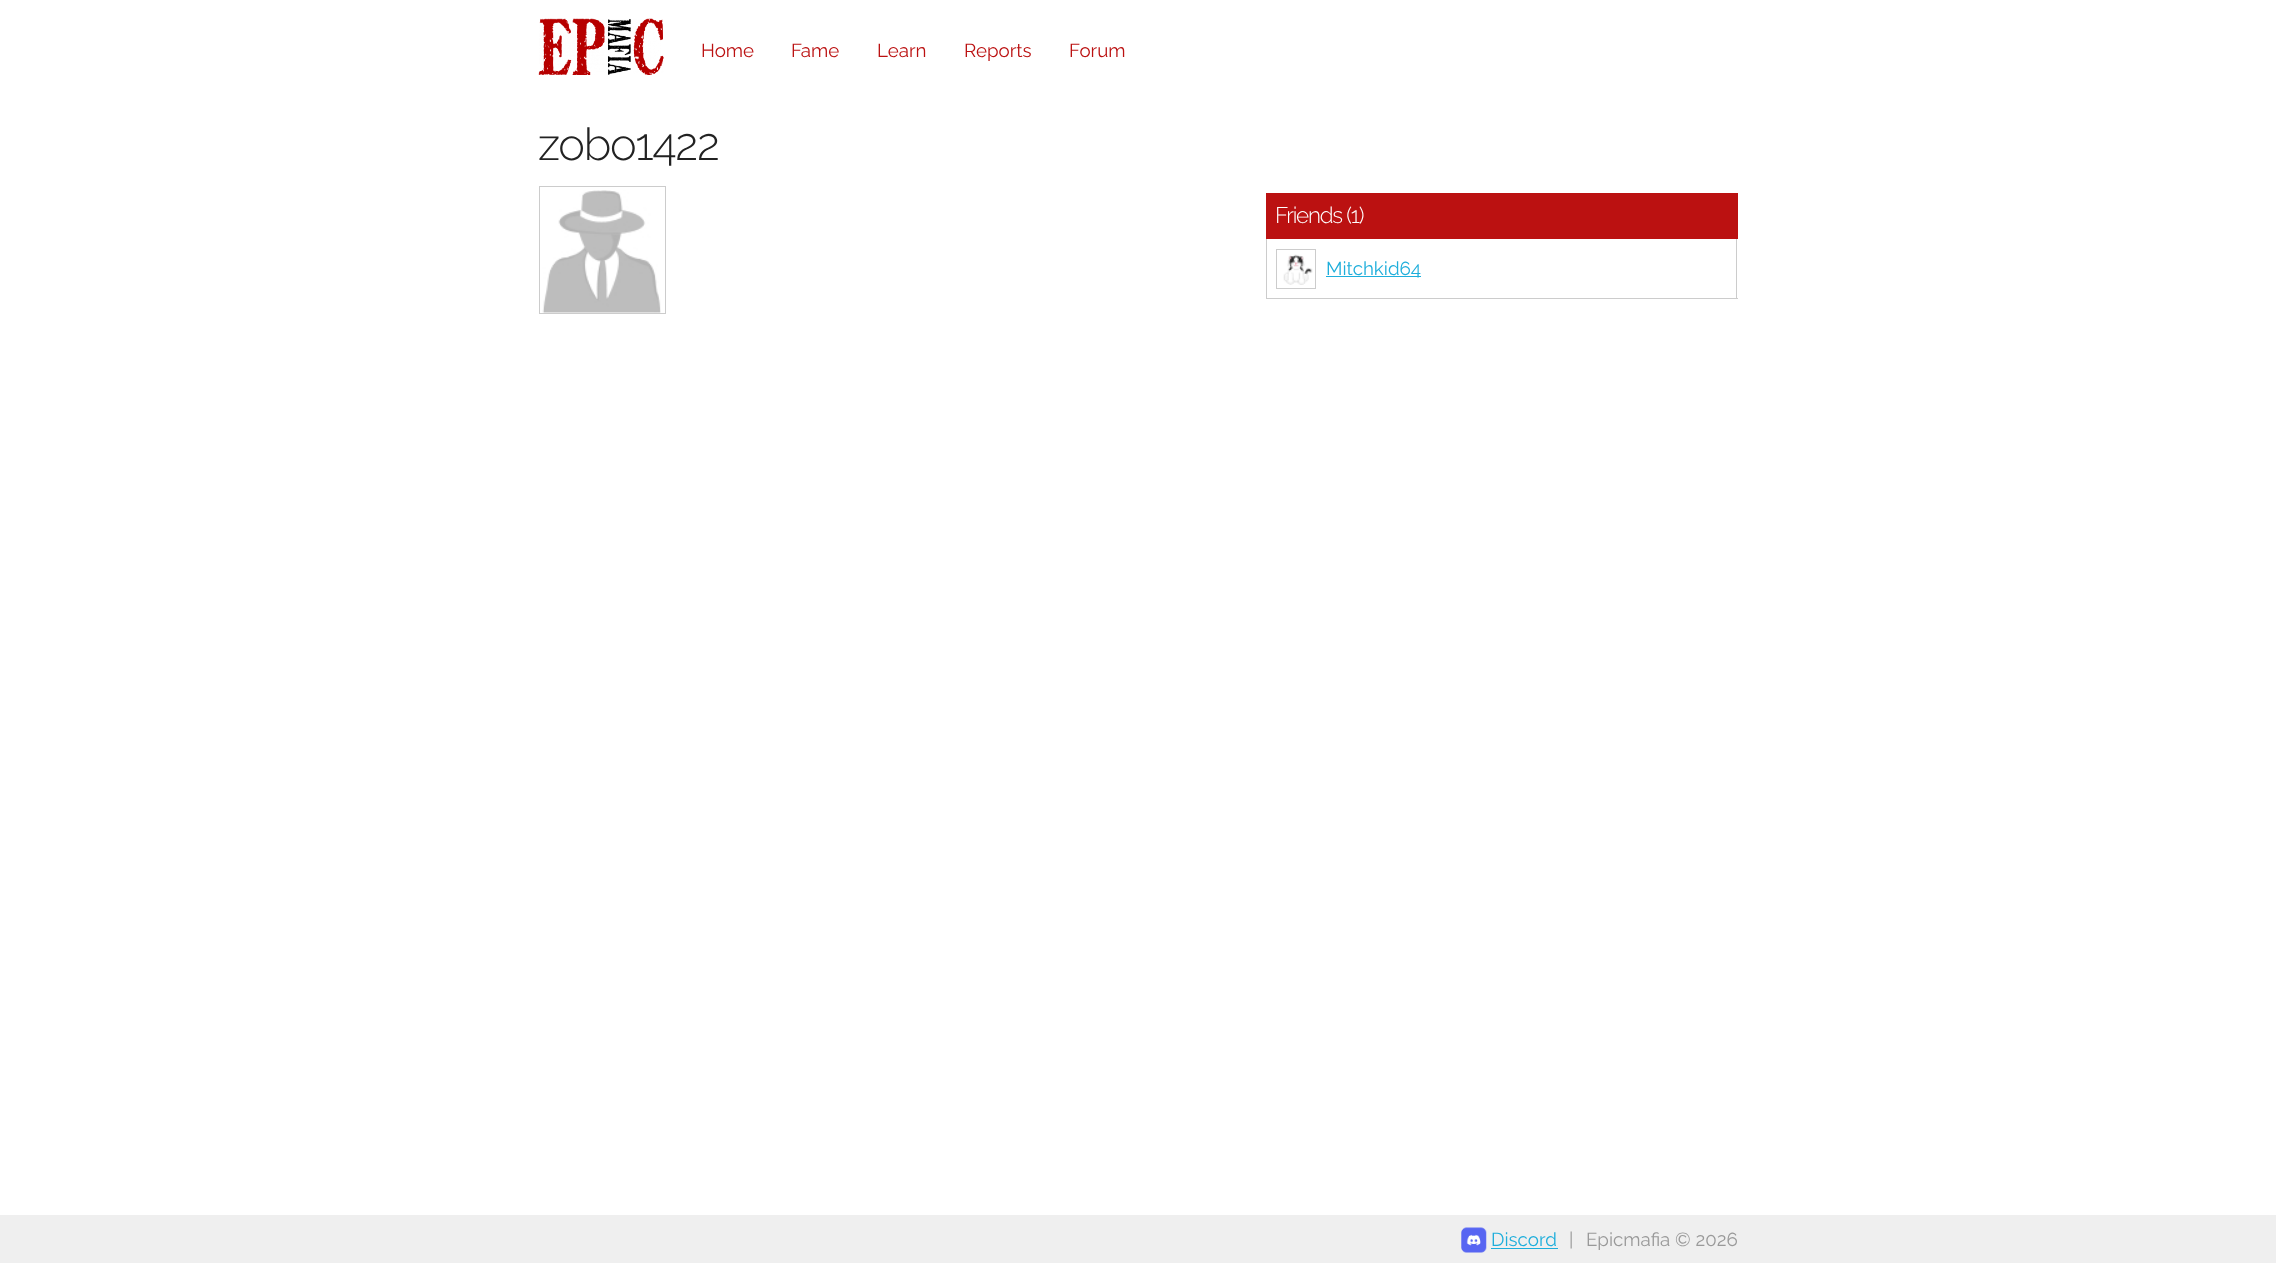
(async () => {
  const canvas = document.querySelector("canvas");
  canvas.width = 2276;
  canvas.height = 1263;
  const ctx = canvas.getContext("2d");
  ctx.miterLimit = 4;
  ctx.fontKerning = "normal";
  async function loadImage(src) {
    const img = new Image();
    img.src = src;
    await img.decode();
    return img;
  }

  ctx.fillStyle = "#ffffff";
  ctx.fillRect(0, 0, 2276, 1263);
  ctx.drawImage(await loadImage("img/1.png"), 538, 18, 126, 57);
  ctx.strokeStyle = "#cccccc";
  ctx.strokeRect(539.5, 186.5, 126, 127);
  ctx.drawImage(await loadImage("img/2.png"), 542, 190, 119, 123);
  for (const [x, y, w, h, color] of [
    [1266, 193, 472, 46, "#bb1111"],
    [1736, 239, 1, 60, "#cccccc"],
    [1266, 298, 472, 1, "#cccccc"],
    [1266, 239, 1, 60, "#cccccc"],
  ]) {
    ctx.fillStyle = color;
    ctx.fillRect(x, y, w, h);
  }
  ctx.strokeRect(1276.5, 249.5, 39, 39);
  ctx.drawImage(await loadImage("img/3.png"), 1283, 254, 30, 31);
  ctx.fillStyle = "#1eaedb";
  ctx.fillRect(1326, 276, 95, 1);
  ctx.fillStyle = "#efefef";
  ctx.fillRect(0, 1215, 2276, 48);
  ctx.drawImage(await loadImage("img/4.png"), 1461, 1227, 26, 26);
  ctx.fillStyle = "#1eaedb";
  ctx.fillRect(1491, 1248, 67, 1);
  ctx.font = "18.75px Raleway";
  ctx.fillStyle = "#bb1111";
  for (const [text, x, y] of [
    ["Home", 701, 57],
    ["Fame", 791, 57],
    ["Learn", 877, 57],
    ["Reports", 964, 57],
    ["Forum", 1069, 57],
  ]) {
    ctx.fillText(text, x, y);
  }
  ctx.letterSpacing = "-1.25px";
  ctx.font = "300 45px Raleway";
  ctx.fillStyle = "#222222";
  ctx.fillText("zobo1422", 538, 160);
  ctx.font = "300 22.5px Raleway";
  ctx.fillStyle = "#ffffff";
  ctx.fillText("Friends (1)", 1275, 223);
  ctx.letterSpacing = "0px";
  ctx.font = "18.75px Raleway";
  ctx.fillStyle = "#1eaedb";
  ctx.fillText("Mitchkid64", 1326, 275);
  ctx.fillText("Discord", 1491, 1246);
  ctx.fillStyle = "#999999";
  ctx.fillText("|", 1569, 1246);
  ctx.fillText("Epicmafia © 2026", 1586, 1246);
})();
